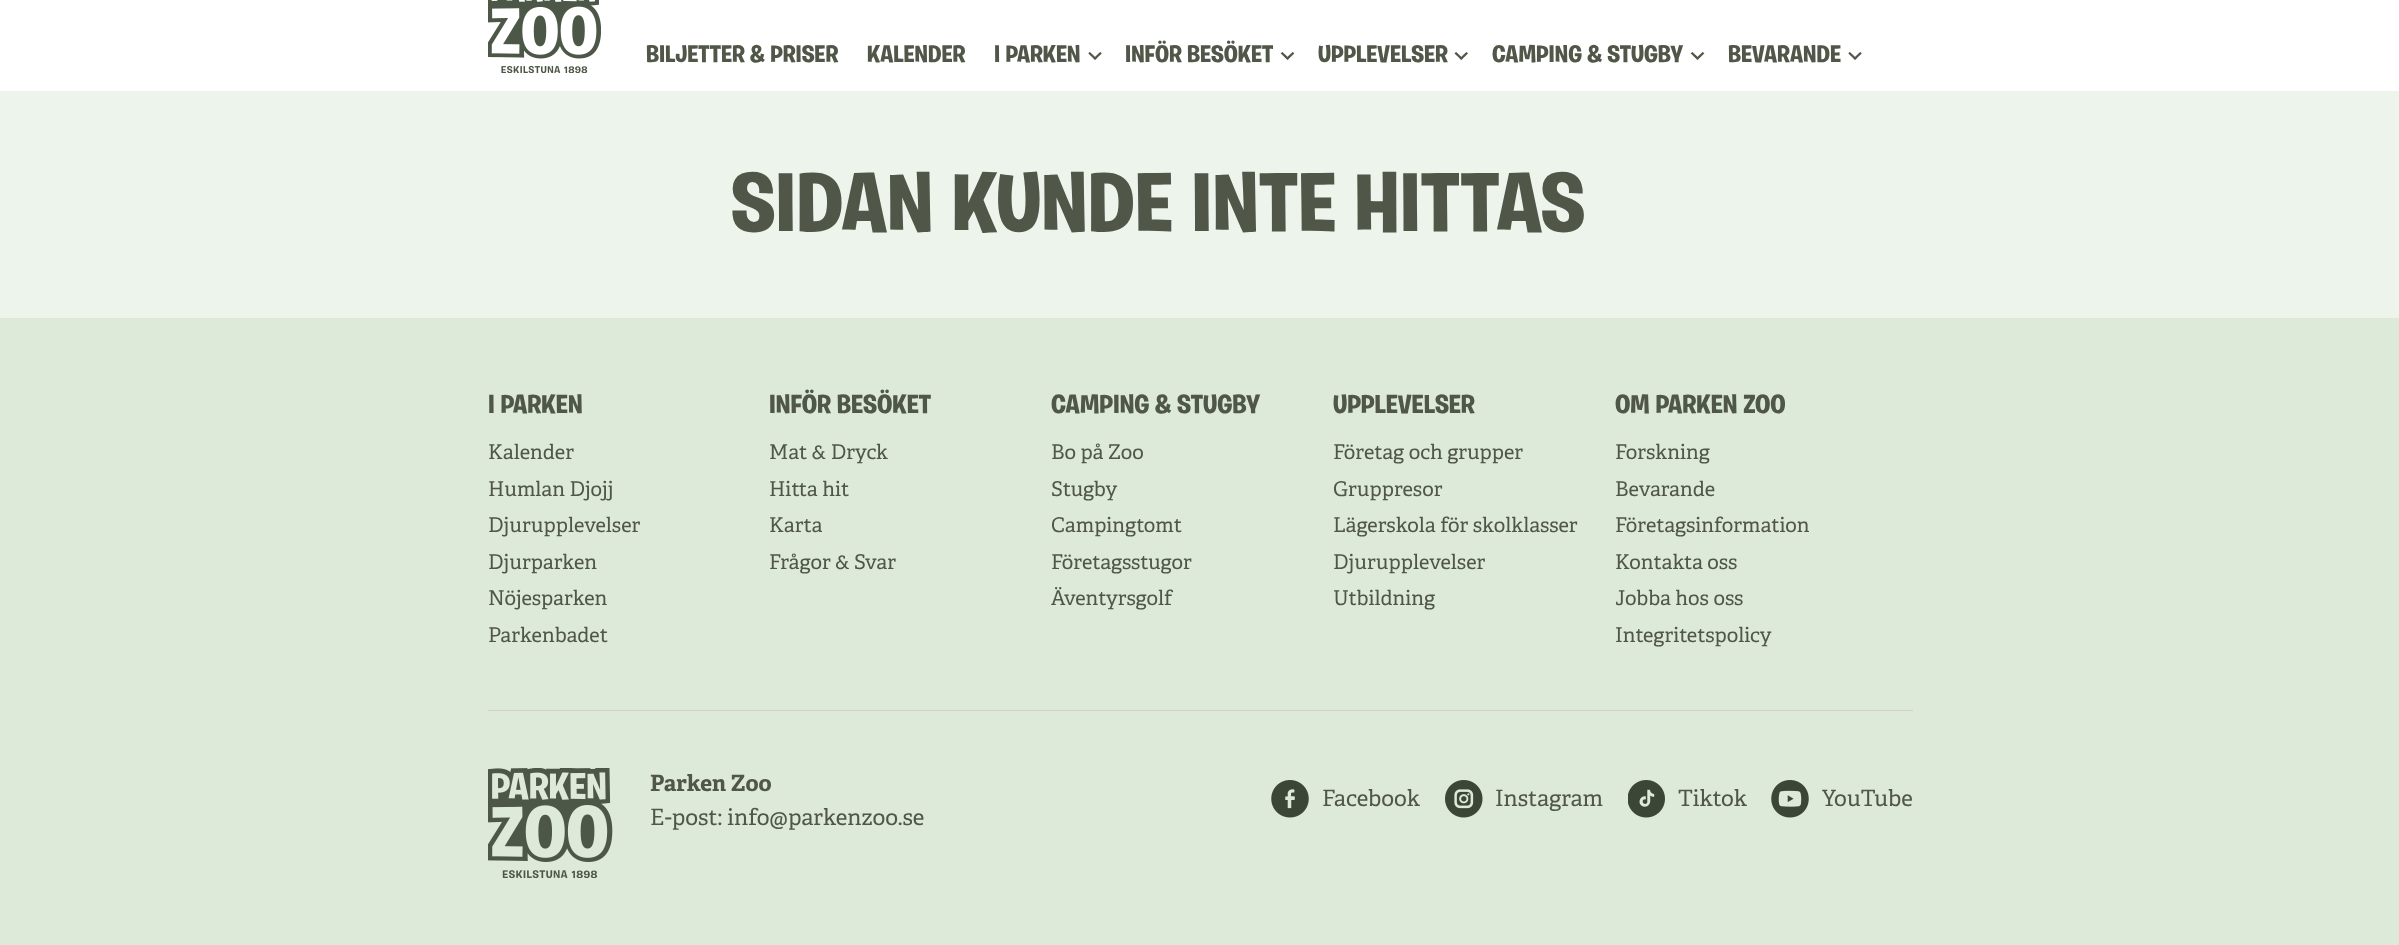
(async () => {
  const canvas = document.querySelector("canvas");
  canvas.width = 2399;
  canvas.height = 945;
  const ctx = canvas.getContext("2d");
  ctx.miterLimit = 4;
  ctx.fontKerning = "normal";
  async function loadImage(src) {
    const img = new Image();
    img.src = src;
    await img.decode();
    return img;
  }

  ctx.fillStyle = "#edf4ec";
  ctx.fillRect(0, 0, 2399, 945);
  ctx.fillStyle = "#ffffff";
  ctx.fillRect(0, 0, 2399, 91);
  ctx.drawImage(await loadImage("img/1.png"), 488, 0, 113, 73);
  ctx.drawImage(await loadImage("img/2.png"), 1088, 52, 14, 8);
  ctx.drawImage(await loadImage("img/3.png"), 1280, 52, 15, 8);
  ctx.drawImage(await loadImage("img/4.png"), 1454, 52, 14, 8);
  ctx.drawImage(await loadImage("img/3.png"), 1690, 52, 15, 8);
  ctx.drawImage(await loadImage("img/2.png"), 1848, 52, 14, 8);
  ctx.fillStyle = "#ddead9";
  ctx.fillRect(0, 318, 2399, 627);
  ctx.fillStyle = "#d1cfc6";
  ctx.fillRect(488, 710, 1425, 1);
  ctx.drawImage(await loadImage("img/5.png"), 488, 768, 125, 110);
  ctx.drawImage(await loadImage("img/6.png"), 1271, 780, 38, 38);
  ctx.drawImage(await loadImage("img/7.png"), 1445, 780, 38, 38);
  ctx.drawImage(await loadImage("img/8.png"), 1628, 780, 37, 38);
  ctx.drawImage(await loadImage("img/9.png"), 1771, 780, 38, 38);
  ctx.font = "bold 24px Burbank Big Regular";
  ctx.fillStyle = "#505748";
  for (const [text, x, y] of [
    ["BILJETTER & PRISER", 646, 62],
    ["KALENDER", 867, 62],
    ["I PARKEN", 994, 62],
    ["INFÖR BESÖKET", 1125, 62],
    ["UPPLEVELSER", 1318, 62],
    ["CAMPING & STUGBY", 1492, 62],
    ["BEVARANDE", 1728, 62],
  ]) {
    ctx.fillText(text, x, y);
  }
  ctx.font = "bold 83.25px Burbank Big Regular";
  ctx.fillText("SIDAN KUNDE INTE HITTAS", 731, 231);
  ctx.font = "bold 26.25px Burbank Big Regular";
  ctx.fillText("I PARKEN", 488, 413);
  ctx.font = "20.25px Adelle";
  for (const [text, x, y] of [
    ["Kalender", 488, 459],
    ["Humlan Djojj", 488, 496],
    ["Djurupplevelser", 488, 532],
    ["Djurparken", 488, 569],
    ["Nöjesparken", 488, 605],
    ["Parkenbadet", 488, 642],
  ]) {
    ctx.fillText(text, x, y);
  }
  ctx.font = "bold 26.25px Burbank Big Regular";
  ctx.fillText("INFÖR BESÖKET", 769, 413);
  ctx.font = "20.25px Adelle";
  for (const [text, x, y] of [
    ["Mat & Dryck", 769, 459],
    ["Hitta hit", 769, 496],
    ["Karta", 769, 532],
    ["Frågor & Svar", 769, 569],
  ]) {
    ctx.fillText(text, x, y);
  }
  ctx.font = "bold 26.25px Burbank Big Regular";
  ctx.fillText("CAMPING & STUGBY", 1051, 413);
  ctx.font = "20.25px Adelle";
  for (const [text, x, y] of [
    ["Bo på Zoo", 1051, 459],
    ["Stugby", 1051, 496],
    ["Campingtomt", 1051, 532],
    ["Företagsstugor", 1051, 569],
    ["Äventyrsgolf", 1051, 605],
  ]) {
    ctx.fillText(text, x, y);
  }
  ctx.font = "bold 26.25px Burbank Big Regular";
  ctx.fillText("UPPLEVELSER", 1333, 413);
  ctx.font = "20.25px Adelle";
  for (const [text, x, y] of [
    ["Företag och grupper", 1333, 459],
    ["Gruppresor", 1333, 496],
    ["Lägerskola för skolklasser", 1333, 532],
    ["Djurupplevelser", 1333, 569],
    ["Utbildning", 1333, 605],
  ]) {
    ctx.fillText(text, x, y);
  }
  ctx.font = "bold 26.25px Burbank Big Regular";
  ctx.fillText("OM PARKEN ZOO", 1615, 413);
  ctx.font = "20.25px Adelle";
  for (const [text, x, y] of [
    ["Forskning", 1615, 459],
    ["Bevarande", 1615, 496],
    ["Företagsinformation", 1615, 532],
    ["Kontakta oss", 1615, 569],
    ["Jobba hos oss", 1615, 605],
    ["Integritetspolicy", 1615, 642],
  ]) {
    ctx.fillText(text, x, y);
  }
  ctx.font = "bold 22.5px Adelle";
  ctx.fillText("Parken Zoo", 650, 791);
  ctx.font = "22.5px Adelle";
  for (const [text, x, y] of [
    ["E-post: info@parkenzoo.se", 650, 825],
    ["Facebook", 1322, 806],
    ["Instagram", 1495, 806],
    ["Tiktok", 1678, 806],
    ["YouTube", 1822, 806],
  ]) {
    ctx.fillText(text, x, y);
  }
})();
